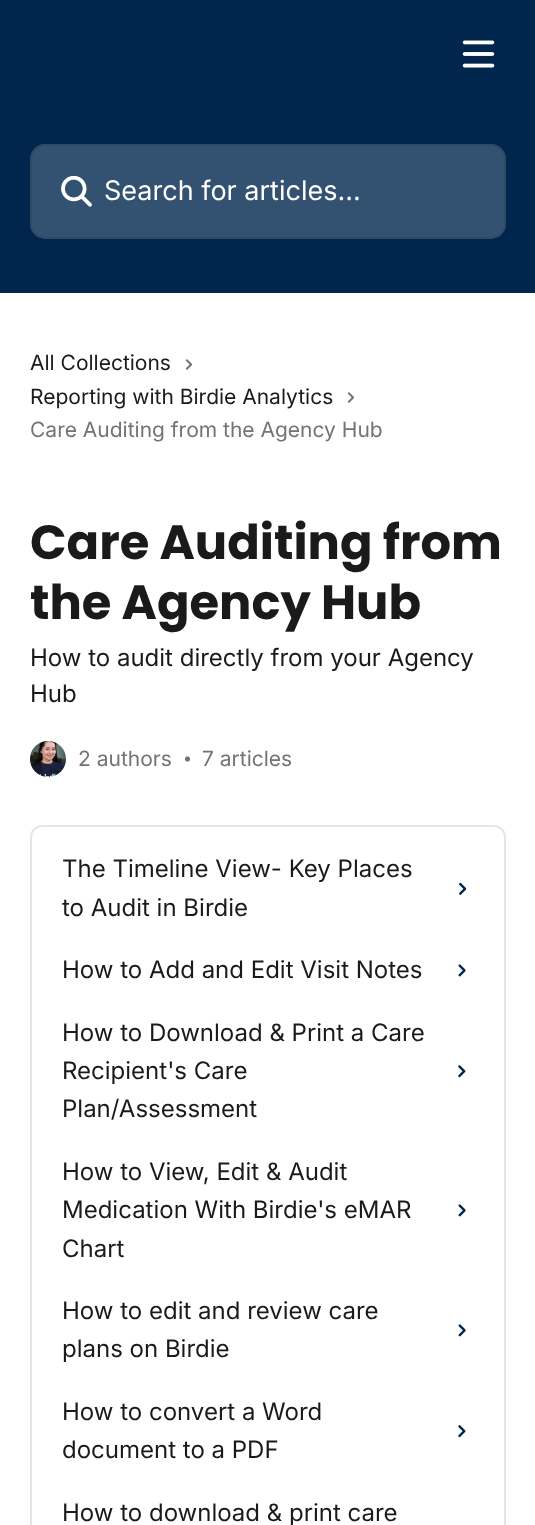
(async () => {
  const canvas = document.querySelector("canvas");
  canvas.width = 535;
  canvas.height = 1525;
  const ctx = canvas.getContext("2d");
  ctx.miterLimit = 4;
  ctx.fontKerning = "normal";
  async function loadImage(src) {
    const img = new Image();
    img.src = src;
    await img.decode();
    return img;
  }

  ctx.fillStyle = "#ffffff";
  ctx.fillRect(0, 0, 535, 1525);
  ctx.fillStyle = "#00264d";
  ctx.fillRect(0, 0, 535, 293);
  ctx.drawImage(await loadImage("img/1.png"), 462, 40, 33, 28);
  ctx.fillStyle = "rgba(255, 255, 255, 0.2)";
  ctx.beginPath();
  ctx.roundRect(30, 144, 476, 95, 15);
  ctx.fill();
  ctx.beginPath();
  ctx.roundRect(31, 145, 474, 93, 14);
  ctx.strokeStyle = "rgba(0, 0, 0, 0.08)";
  ctx.lineWidth = 2;
  ctx.stroke();
  ctx.drawImage(await loadImage("img/2.png"), 61, 176, 31, 31);
  ctx.drawImage(await loadImage("img/3.png"), 185, 359, 8, 11);
  ctx.drawImage(await loadImage("img/3.png"), 347, 392, 8, 11);
  ctx.drawImage(await loadImage("img/4.png"), 30, 741, 36, 36);
  ctx.drawImage(await loadImage("img/5.png"), 185, 756, 6, 6);
  ctx.beginPath();
  ctx.roundRect(31, 826, 474, 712, 11);
  ctx.strokeStyle = "#e6e6e6";
  ctx.stroke();
  ctx.drawImage(await loadImage("img/6.png"), 459, 882, 8, 13);
  ctx.drawImage(await loadImage("img/7.png"), 458, 964, 8, 13);
  ctx.drawImage(await loadImage("img/8.png"), 458, 1065, 8, 13);
  ctx.drawImage(await loadImage("img/9.png"), 458, 1204, 8, 13);
  ctx.drawImage(await loadImage("img/10.png"), 458, 1324, 8, 13);
  ctx.drawImage(await loadImage("img/11.png"), 458, 1425, 8, 13);
  ctx.font = "27px Inter";
  ctx.fillStyle = "#ffffff";
  ctx.fillText("Search for articles...", 104, 200);
  ctx.font = "21px Inter";
  ctx.fillStyle = "#1a1a1a";
  ctx.fillText("All Collections", 30, 370);
  ctx.fillText("Reporting with Birdie Analytics", 30, 404);
  ctx.fillStyle = "#737373";
  ctx.fillText("Care Auditing from the Agency Hub", 30, 437);
  ctx.font = "bold 48px Poppins";
  ctx.fillStyle = "#1a1a1a";
  ctx.fillText("Care Auditing from", 30, 559);
  ctx.fillText("the Agency Hub", 30, 619);
  ctx.font = "24px Inter";
  ctx.fillText("How to audit directly from your Agency", 30, 666);
  ctx.fillText("Hub", 30, 702);
  ctx.font = "21px Inter";
  ctx.fillStyle = "#737373";
  ctx.fillText("2 authors", 78, 766);
  ctx.fillText("7 articles", 202, 766);
  ctx.font = "24px Inter";
  ctx.fillStyle = "#1a1a1a";
  for (const [text, x, y] of [
    ["The Timeline View- Key Places", 62, 877],
    ["to Audit in Birdie", 62, 916],
    ["How to Add and Edit Visit Notes", 62, 978],
    ["How to Download & Print a Care", 62, 1041],
    ["Recipient's Care", 62, 1079],
    ["Plan/Assessment", 62, 1117],
    ["How to View, Edit & Audit", 62, 1180],
    ["Medication With Birdie's eMAR", 62, 1218],
    ["Chart", 62, 1257],
    ["How to edit and review care", 62, 1319],
    ["plans on Birdie", 62, 1357],
    ["How to convert a Word", 62, 1420],
    ["document to a PDF", 62, 1458],
    ["How to download & print care", 62, 1521],
  ]) {
    ctx.fillText(text, x, y);
  }
})();
